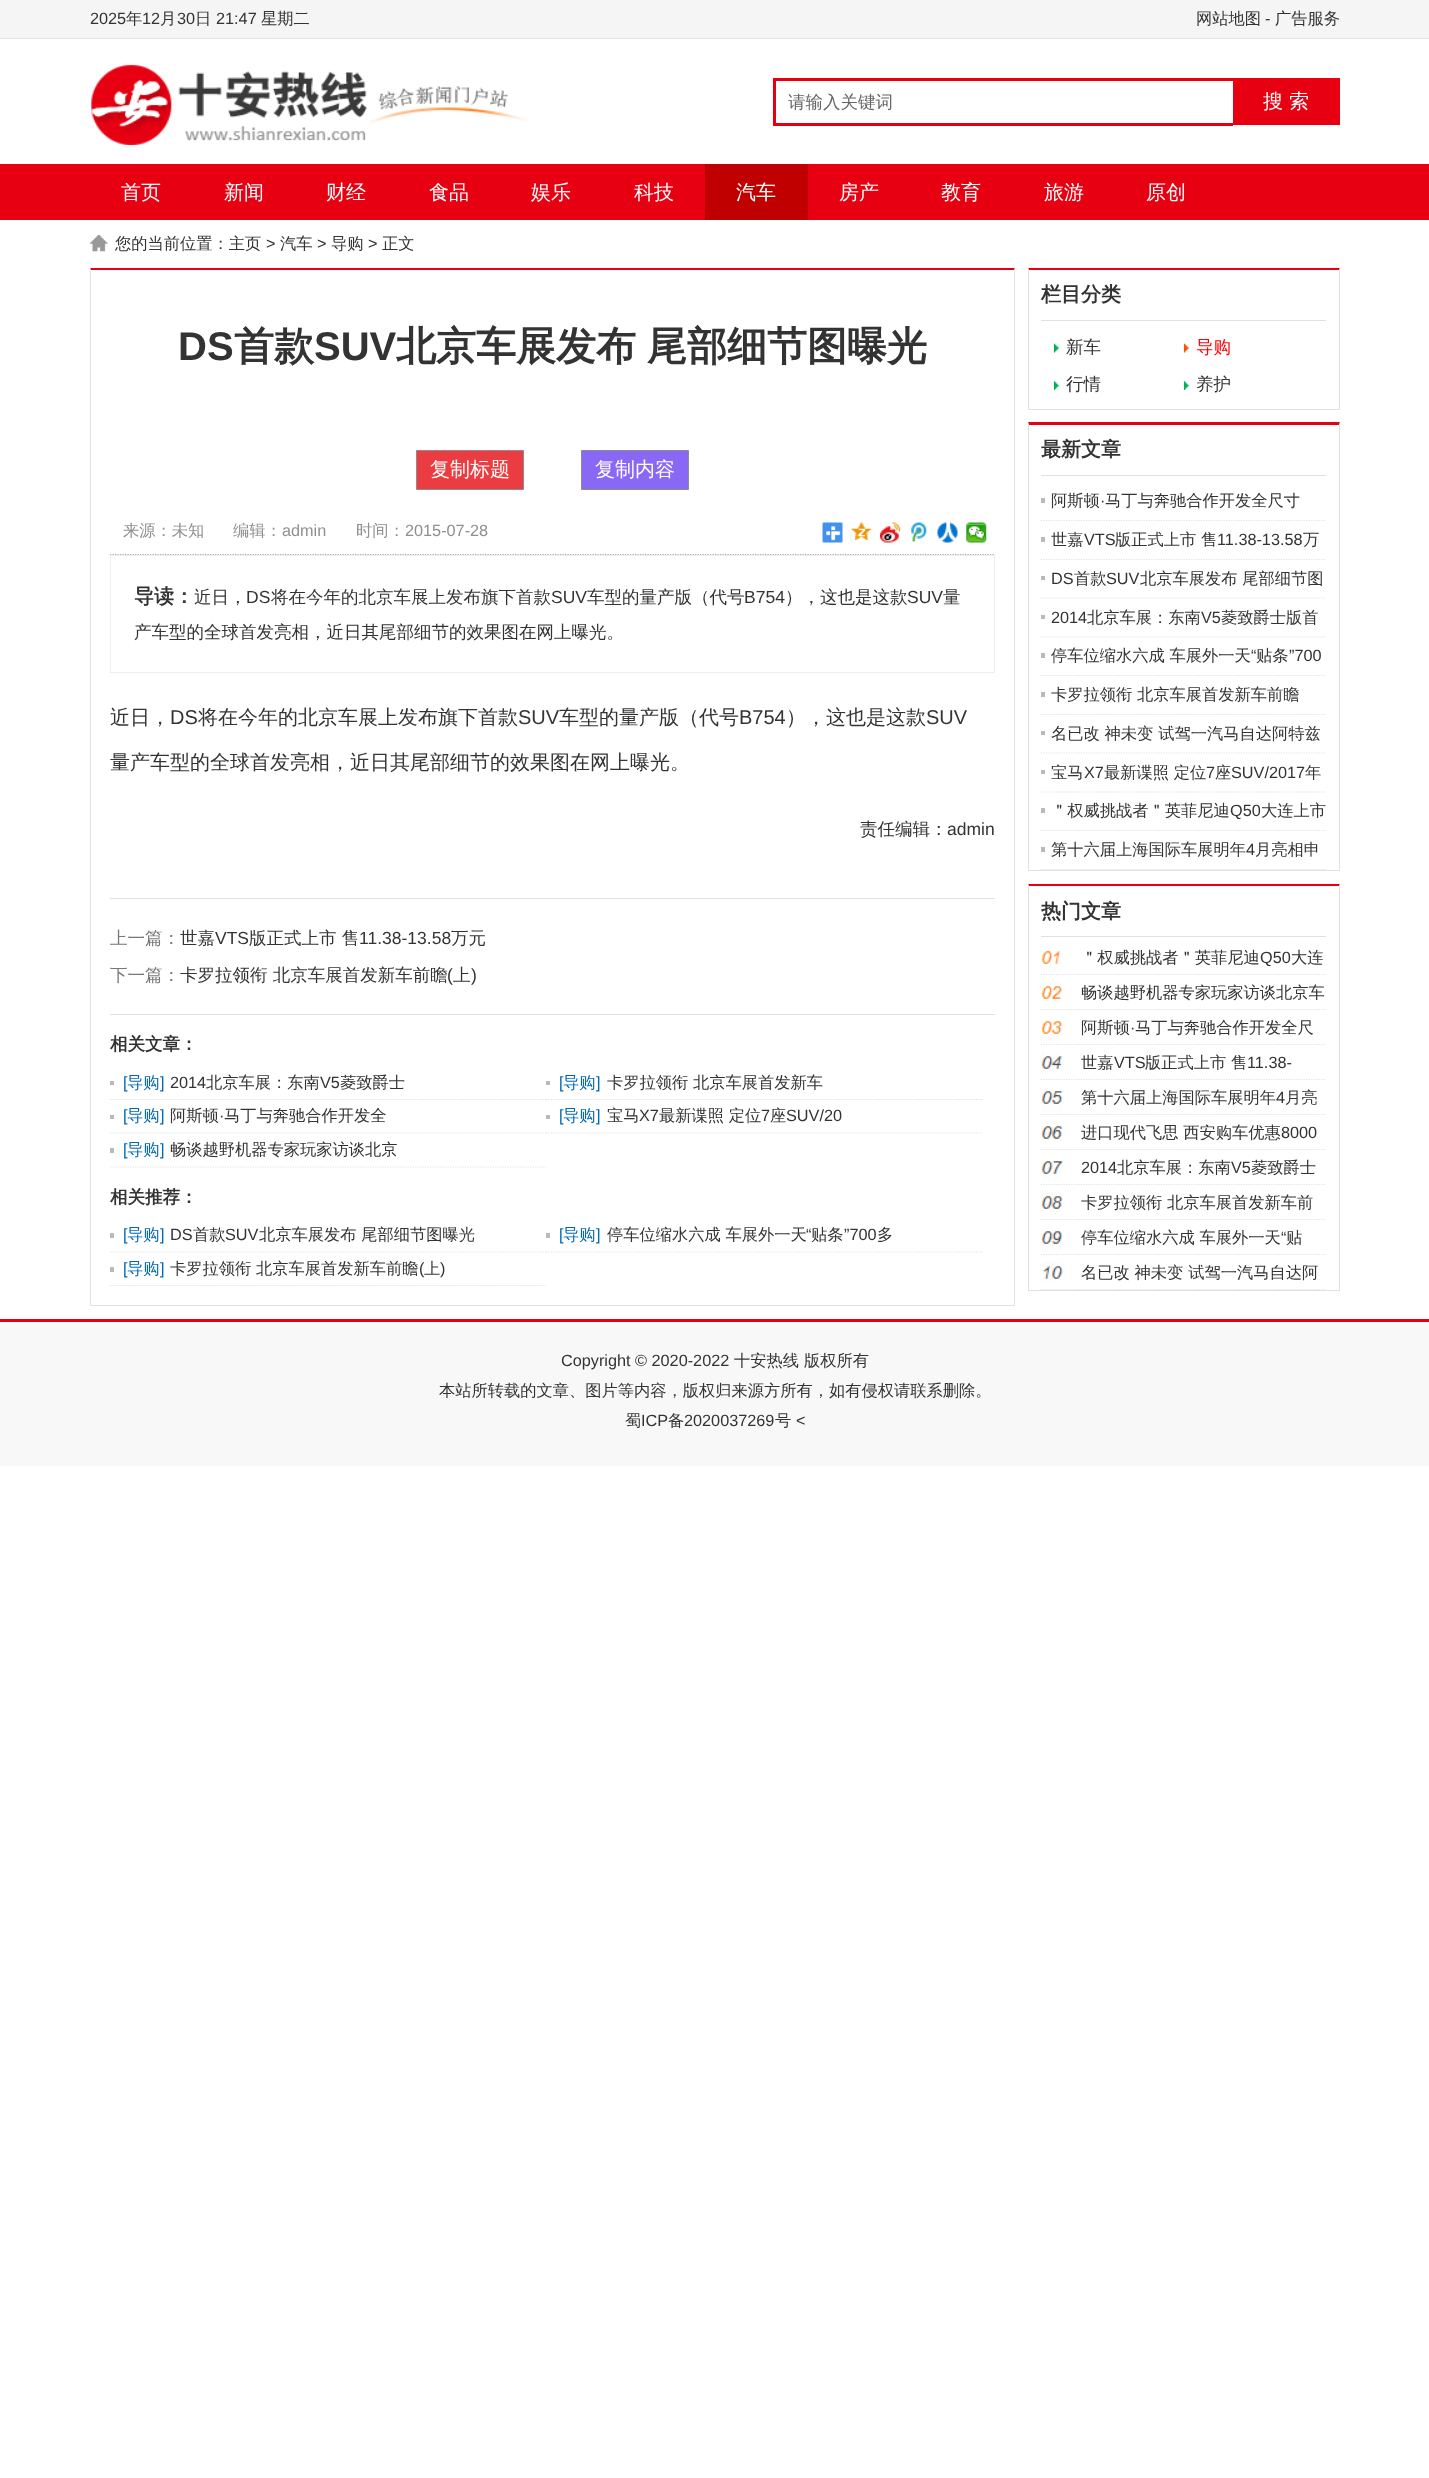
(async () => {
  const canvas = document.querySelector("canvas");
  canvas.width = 1429;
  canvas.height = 2478;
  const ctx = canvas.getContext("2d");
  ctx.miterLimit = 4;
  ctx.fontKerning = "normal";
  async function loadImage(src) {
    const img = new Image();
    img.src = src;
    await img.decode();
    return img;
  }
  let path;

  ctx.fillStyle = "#ffffff";
  ctx.fillRect(0, 0, 1429, 2478);
  ctx.fillStyle = "#f5f5f5";
  ctx.fillRect(0, 0, 1429, 38);
  ctx.fillStyle = "#e3e3e3";
  ctx.fillRect(0, 38, 1429, 1);
  ctx.drawImage(await loadImage("img/1.png"), 91, 64, 437, 81);
  for (const [x, y, w, h, color] of [
    [773, 78, 460, 3, "#e60012"],
    [773, 123, 460, 3, "#e60012"],
    [773, 78, 3, 47, "#e60012"],
    [1233, 78, 107, 47, "#e60012"],
    [0, 164, 1429, 56, "#e60012"],
    [705, 164, 103, 56, "#c00000"],
  ]) {
    ctx.fillStyle = color;
    ctx.fillRect(x, y, w, h);
  }
  ctx.drawImage(await loadImage("img/2.png"), 90, 235, 18, 17);
  ctx.fillStyle = "#e60012";
  path = new Path2D("M90 268H1015L1014 270H91Z");
  ctx.fill(path);
  ctx.fillStyle = "#e1e1e1";
  path = new Path2D("M1015 268V1306L1014 1305V270Z");
  ctx.fill(path);
  ctx.fillRect(90, 1305, 925, 1);
  path = new Path2D("M90 1306V268L91 270V1305Z");
  ctx.fill(path);
  ctx.fillStyle = "#eb3d41";
  ctx.beginPath();
  ctx.rect(416.5, 450.5, 107, 39);
  ctx.fill();
  ctx.strokeStyle = "#8e8b8b";
  ctx.stroke();
  ctx.fillStyle = "#8a68f6";
  ctx.beginPath();
  ctx.rect(581.5, 450.5, 107, 39);
  ctx.fill();
  ctx.stroke();
  ctx.strokeStyle = "#eeeeee";
  ctx.strokeRect(110.5, 555.5, 884, 117);
  path = new Path2D("M110 554.5H995");
  ctx.strokeStyle = "#ababab";
  ctx.lineWidth = 1.2;
  ctx.setLineDash([1.25, 1.25]);
  ctx.stroke(path);
  ctx.drawImage(await loadImage("img/3.png"), 822, 522, 21, 21);
  ctx.drawImage(await loadImage("img/4.png"), 851, 522, 21, 19);
  ctx.drawImage(await loadImage("img/5.png"), 880, 522, 20, 21);
  ctx.drawImage(await loadImage("img/6.png"), 911, 522, 16, 20);
  ctx.drawImage(await loadImage("img/7.png"), 937, 522, 21, 21);
  ctx.drawImage(await loadImage("img/8.png"), 966, 522, 21, 21);
  for (const [x, y, w, h, color] of [
    [110, 898, 885, 1, "#e1e1e1"],
    [110, 1014, 885, 1, "#e1e1e1"],
    [110, 1081, 4, 4, "#bababa"],
  ]) {
    ctx.fillStyle = color;
    ctx.fillRect(x, y, w, h);
  }
  path = new Path2D("M110 1099.5H546");
  ctx.strokeStyle = "#e1e1e1";
  ctx.stroke(path);
  ctx.fillRect(546, 1081, 4, 4);
  path = new Path2D("M546 1099.5H982.5");
  ctx.stroke(path);
  ctx.fillRect(110, 1115, 4, 4);
  path = new Path2D("M110 1133H546");
  ctx.stroke(path);
  ctx.fillRect(546, 1115, 4, 4);
  path = new Path2D("M546 1133H982.5");
  ctx.stroke(path);
  ctx.fillRect(110, 1148, 4, 5);
  path = new Path2D("M110 1167H546");
  ctx.stroke(path);
  ctx.fillRect(110, 1233, 4, 5);
  path = new Path2D("M110 1252H546");
  ctx.stroke(path);
  ctx.fillRect(546, 1233, 4, 5);
  path = new Path2D("M546 1252H982.5");
  ctx.stroke(path);
  ctx.fillRect(110, 1267, 4, 5);
  ctx.save();
  ctx.beginPath();
  ctx.rect(110, 1168, 885, 118);
  ctx.clip();
  path = new Path2D("M110 1285.5H546");
  ctx.stroke(path);
  ctx.restore();
  ctx.fillStyle = "#e60012";
  path = new Path2D("M1028 268H1340L1339 270H1029Z");
  ctx.fill(path);
  ctx.fillStyle = "#e1e1e1";
  path = new Path2D("M1340 268V410L1339 409V270Z");
  ctx.fill(path);
  ctx.fillRect(1028, 409, 312, 1);
  path = new Path2D("M1028 410V268L1029 270V409Z");
  ctx.fill(path);
  ctx.fillRect(1041, 320, 285, 1);
  ctx.drawImage(await loadImage("img/9.png"), 1053, 343, 6, 10);
  ctx.drawImage(await loadImage("img/10.png"), 1183, 343, 6, 10);
  ctx.drawImage(await loadImage("img/11.png"), 1053, 381, 6, 9);
  ctx.drawImage(await loadImage("img/11.png"), 1183, 381, 6, 9);
  ctx.fillStyle = "#e60012";
  path = new Path2D("M1028 422H1340L1339 425H1029Z");
  ctx.fill(path);
  ctx.fillStyle = "#e1e1e1";
  path = new Path2D("M1340 422V871L1339 870V425Z");
  ctx.fill(path);
  ctx.fillRect(1028, 870, 312, 1);
  path = new Path2D("M1028 871V422L1029 425V870Z");
  ctx.fill(path);
  ctx.fillRect(1041, 475, 285, 1);
  ctx.fillStyle = "#bababa";
  ctx.fillRect(1041, 498, 4, 5);
  path = new Path2D("M1041 520.5H1326");
  ctx.stroke(path);
  ctx.fillRect(1041, 537, 4, 5);
  path = new Path2D("M1041 559.5H1326");
  ctx.stroke(path);
  ctx.fillRect(1041, 576, 4, 4);
  path = new Path2D("M1041 598H1326");
  ctx.stroke(path);
  ctx.fillRect(1041, 615, 4, 4);
  path = new Path2D("M1041 637H1326");
  ctx.stroke(path);
  ctx.fillRect(1041, 653, 4, 5);
  path = new Path2D("M1041 675.5H1326");
  ctx.stroke(path);
  ctx.fillRect(1041, 692, 4, 5);
  path = new Path2D("M1041 714.5H1326");
  ctx.stroke(path);
  ctx.fillRect(1041, 731, 4, 4);
  path = new Path2D("M1041 753H1326");
  ctx.stroke(path);
  ctx.fillRect(1041, 770, 4, 4);
  path = new Path2D("M1041 792H1326");
  ctx.stroke(path);
  ctx.fillRect(1041, 808, 4, 5);
  path = new Path2D("M1041 830.5H1326");
  ctx.stroke(path);
  ctx.fillRect(1041, 847, 4, 5);
  ctx.save();
  ctx.beginPath();
  ctx.rect(1029, 425, 310, 445);
  ctx.clip();
  path = new Path2D("M1041 869.5H1326");
  ctx.stroke(path);
  ctx.restore();
  ctx.fillStyle = "#e60012";
  path = new Path2D("M1028 884H1340L1339 886H1029Z");
  ctx.fill(path);
  ctx.fillStyle = "#e1e1e1";
  path = new Path2D("M1340 884V1291L1339 1290V886Z");
  ctx.fill(path);
  ctx.fillRect(1028, 1290, 312, 1);
  path = new Path2D("M1028 1291V884L1029 886V1290Z");
  ctx.fill(path);
  ctx.fillRect(1041, 936, 285, 1);
  ctx.drawImage(await loadImage("img/12.png"), 1041, 951, 22, 330);
  path = new Path2D("M1041 974.5H1326");
  ctx.stroke(path);
  path = new Path2D("M1041 1009.5H1326");
  ctx.stroke(path);
  path = new Path2D("M1041 1044.5H1326");
  ctx.stroke(path);
  path = new Path2D("M1041 1079.5H1326");
  ctx.stroke(path);
  path = new Path2D("M1041 1114.5H1326");
  ctx.stroke(path);
  path = new Path2D("M1041 1149.5H1326");
  ctx.stroke(path);
  path = new Path2D("M1041 1184.5H1326");
  ctx.stroke(path);
  path = new Path2D("M1041 1219.5H1326");
  ctx.stroke(path);
  path = new Path2D("M1041 1254.5H1326");
  ctx.stroke(path);
  ctx.save();
  ctx.beginPath();
  ctx.rect(1029, 886, 310, 404);
  ctx.clip();
  path = new Path2D("M1041 1289.5H1326");
  ctx.stroke(path);
  ctx.restore();
  ctx.fillStyle = "#f8f8f8";
  ctx.fillRect(0, 1322, 1429, 144);
  ctx.fillStyle = "#e60012";
  ctx.fillRect(0, 1319, 1429, 3);
  ctx.font = "16.25px Liberation Sans";
  ctx.fillStyle = "#333333";
  ctx.fillText("2025", 90, 24);
  ctx.font = "500 16.25px WenQuanYi Zen Hei";
  ctx.fillText("年", 126, 24);
  ctx.font = "16.25px Liberation Sans";
  ctx.fillText("12", 142, 24);
  ctx.font = "500 16.25px WenQuanYi Zen Hei";
  ctx.fillText("月", 160, 24);
  ctx.font = "16.25px Liberation Sans";
  ctx.fillText("30", 177, 24);
  ctx.font = "500 16.25px WenQuanYi Zen Hei";
  ctx.fillText("日", 195, 24);
  ctx.font = "16.25px Liberation Sans";
  ctx.fillText("21:47", 216, 24);
  ctx.font = "500 16.25px WenQuanYi Zen Hei";
  ctx.fillText("星期二", 261, 24);
  ctx.fillText("网站地图", 1196, 24);
  ctx.font = "16.25px Liberation Sans";
  ctx.fillText("-", 1265, 24);
  ctx.font = "500 16.25px WenQuanYi Zen Hei";
  ctx.fillText("广告服务", 1275, 24);
  ctx.font = "500 17.5px WenQuanYi Zen Hei";
  ctx.fillStyle = "#666666";
  ctx.fillText("请输入关键词", 788, 108);
  ctx.font = "500 20px WenQuanYi Zen Hei";
  ctx.fillStyle = "#ffffff";
  for (const [text, x, y] of [
    ["搜 索", 1263, 108],
    ["首页", 121, 199],
    ["新闻", 224, 199],
    ["财经", 326, 199],
    ["食品", 429, 199],
    ["娱乐", 531, 199],
    ["科技", 634, 199],
    ["汽车", 736, 199],
    ["房产", 839, 199],
    ["教育", 941, 199],
    ["旅游", 1044, 199],
    ["原创", 1146, 199],
  ]) {
    ctx.fillText(text, x, y);
  }
  ctx.font = "500 16.25px WenQuanYi Zen Hei";
  ctx.fillStyle = "#333333";
  ctx.fillText("您的当前位置：主页", 115, 249);
  ctx.font = "16.25px Liberation Sans";
  ctx.fillText(">", 266, 249);
  ctx.font = "500 16.25px WenQuanYi Zen Hei";
  ctx.fillText("汽车", 280, 249);
  ctx.font = "16.25px Liberation Sans";
  ctx.fillText(">", 317, 249);
  ctx.font = "500 16.25px WenQuanYi Zen Hei";
  ctx.fillText("导购", 331, 249);
  ctx.font = "16.25px Liberation Sans";
  ctx.fillText(">", 368, 249);
  ctx.font = "500 16.25px WenQuanYi Zen Hei";
  ctx.fillText("正文", 382, 249);
  ctx.font = "bold 40px Liberation Sans";
  ctx.fillText("DS", 178, 360);
  ctx.font = "bold 40px WenQuanYi Zen Hei";
  ctx.fillText("首款", 234, 360);
  ctx.font = "bold 40px Liberation Sans";
  ctx.fillText("SUV", 314, 360);
  ctx.wordSpacing = "-1px";
  ctx.font = "bold 40px WenQuanYi Zen Hei";
  ctx.fillText("北京车展发布 尾部细节图曝光", 396, 360);
  ctx.wordSpacing = "0px";
  ctx.font = "500 20px WenQuanYi Zen Hei";
  ctx.fillStyle = "#ffffff";
  ctx.fillText("复制标题", 430, 476);
  ctx.fillText("复制内容", 595, 476);
  ctx.font = "500 16.25px WenQuanYi Zen Hei";
  ctx.fillStyle = "#8f8f8f";
  ctx.fillText("来源：未知", 123, 536);
  ctx.fillText("编辑：", 233, 536);
  ctx.font = "16.25px Liberation Sans";
  ctx.fillText("admin", 282, 536);
  ctx.font = "500 16.25px WenQuanYi Zen Hei";
  ctx.fillText("时间：", 356, 536);
  ctx.font = "16.25px Liberation Sans";
  ctx.fillText("2015-07-28", 405, 536);
  ctx.font = "bold 20px WenQuanYi Zen Hei";
  ctx.fillStyle = "#333333";
  ctx.fillText("导读：", 134, 603);
  ctx.font = "500 17.5px WenQuanYi Zen Hei";
  ctx.fillText("近日，", 194, 603);
  ctx.font = "17.5px Liberation Sans";
  ctx.fillText("DS", 246, 603);
  ctx.font = "500 17.5px WenQuanYi Zen Hei";
  ctx.fillText("将在今年的北京车展上发布旗下首款", 271, 603);
  ctx.font = "17.5px Liberation Sans";
  ctx.fillText("SUV", 551, 603);
  ctx.font = "500 17.5px WenQuanYi Zen Hei";
  ctx.fillText("车型的量产版（代号", 587, 603);
  ctx.font = "17.5px Liberation Sans";
  ctx.fillText("B754", 744, 603);
  ctx.font = "500 17.5px WenQuanYi Zen Hei";
  ctx.fillText("），这也是这款", 785, 603);
  ctx.font = "17.5px Liberation Sans";
  ctx.fillText("SUV", 907, 603);
  ctx.font = "500 17.5px WenQuanYi Zen Hei";
  ctx.fillText("量", 943, 603);
  ctx.fillText("产车型的全球首发亮相，近日其尾部细节的效果图在网上曝光。", 134, 638);
  ctx.font = "500 20px WenQuanYi Zen Hei";
  ctx.fillText("近日，", 110, 724);
  ctx.font = "20px Liberation Sans";
  ctx.fillText("DS", 170, 724);
  ctx.font = "500 20px WenQuanYi Zen Hei";
  ctx.fillText("将在今年的北京车展上发布旗下首款", 198, 724);
  ctx.font = "20px Liberation Sans";
  ctx.fillText("SUV", 518, 724);
  ctx.font = "500 20px WenQuanYi Zen Hei";
  ctx.fillText("车型的量产版（代号", 559, 724);
  ctx.font = "20px Liberation Sans";
  ctx.fillText("B754", 739, 724);
  ctx.font = "500 20px WenQuanYi Zen Hei";
  ctx.fillText("），这也是这款", 786, 724);
  ctx.font = "20px Liberation Sans";
  ctx.fillText("SUV", 926, 724);
  ctx.font = "500 20px WenQuanYi Zen Hei";
  ctx.fillText("量产车型的全球首发亮相，近日其尾部细节的效果图在网上曝光。", 110, 769);
  ctx.font = "500 17.5px WenQuanYi Zen Hei";
  ctx.fillText("责任编辑：", 860, 835);
  ctx.font = "17.5px Liberation Sans";
  ctx.fillText("admin", 947, 835);
  ctx.font = "500 17.5px WenQuanYi Zen Hei";
  ctx.fillStyle = "#777777";
  ctx.fillText("上一篇：", 110, 944);
  ctx.fillStyle = "#333333";
  ctx.fillText("世嘉", 180, 944);
  ctx.font = "17.5px Liberation Sans";
  ctx.fillText("VTS", 215, 944);
  ctx.font = "500 17.5px WenQuanYi Zen Hei";
  ctx.fillText("版正式上市 售", 249, 944);
  ctx.font = "17.5px Liberation Sans";
  ctx.fillText("11.38-13.58", 359, 944);
  ctx.font = "500 17.5px WenQuanYi Zen Hei";
  ctx.fillText("万元", 451, 944);
  ctx.fillStyle = "#777777";
  ctx.fillText("下一篇：", 110, 981);
  ctx.fillStyle = "#333333";
  ctx.fillText("卡罗拉领衔 北京车展首发新车前瞻", 180, 981);
  ctx.font = "17.5px Liberation Sans";
  ctx.fillText("(", 447, 981);
  ctx.font = "500 17.5px WenQuanYi Zen Hei";
  ctx.fillText("上", 453, 981);
  ctx.font = "17.5px Liberation Sans";
  ctx.fillText(")", 471, 981);
  ctx.font = "bold 17.5px WenQuanYi Zen Hei";
  ctx.fillText("相关文章：", 110, 1050);
  ctx.font = "16.25px Liberation Sans";
  ctx.fillStyle = "#0068b7";
  ctx.fillText("[", 123, 1088);
  ctx.font = "500 16.25px WenQuanYi Zen Hei";
  ctx.fillText("导购", 127, 1088);
  ctx.font = "16.25px Liberation Sans";
  ctx.fillText("]", 160, 1088);
  ctx.fillStyle = "#333333";
  ctx.fillText("2014", 170, 1088);
  ctx.font = "500 16.25px WenQuanYi Zen Hei";
  ctx.fillText("北京车展：东南", 206, 1088);
  ctx.font = "16.25px Liberation Sans";
  ctx.fillText("V5", 320, 1088);
  ctx.font = "500 16.25px WenQuanYi Zen Hei";
  ctx.fillText("菱致爵士", 340, 1088);
  ctx.font = "16.25px Liberation Sans";
  ctx.fillStyle = "#0068b7";
  ctx.fillText("[", 559, 1088);
  ctx.font = "500 16.25px WenQuanYi Zen Hei";
  ctx.fillText("导购", 563, 1088);
  ctx.font = "16.25px Liberation Sans";
  ctx.fillText("]", 596, 1088);
  ctx.font = "500 16.25px WenQuanYi Zen Hei";
  ctx.fillStyle = "#333333";
  ctx.fillText("卡罗拉领衔 北京车展首发新车", 607, 1088);
  ctx.font = "16.25px Liberation Sans";
  ctx.fillStyle = "#0068b7";
  ctx.fillText("[", 123, 1121);
  ctx.font = "500 16.25px WenQuanYi Zen Hei";
  ctx.fillText("导购", 127, 1121);
  ctx.font = "16.25px Liberation Sans";
  ctx.fillText("]", 160, 1121);
  ctx.font = "500 16.25px WenQuanYi Zen Hei";
  ctx.fillStyle = "#333333";
  ctx.fillText("阿斯顿", 170, 1121);
  ctx.font = "16.25px Liberation Sans";
  ctx.fillText("·", 219, 1121);
  ctx.font = "500 16.25px WenQuanYi Zen Hei";
  ctx.fillText("马丁与奔驰合作开发全", 224, 1121);
  ctx.font = "16.25px Liberation Sans";
  ctx.fillStyle = "#0068b7";
  ctx.fillText("[", 559, 1121);
  ctx.font = "500 16.25px WenQuanYi Zen Hei";
  ctx.fillText("导购", 563, 1121);
  ctx.font = "16.25px Liberation Sans";
  ctx.fillText("]", 596, 1121);
  ctx.font = "500 16.25px WenQuanYi Zen Hei";
  ctx.fillStyle = "#333333";
  ctx.fillText("宝马", 607, 1121);
  ctx.font = "16.25px Liberation Sans";
  ctx.fillText("X7", 639, 1121);
  ctx.font = "500 16.25px WenQuanYi Zen Hei";
  ctx.fillText("最新谍照 定位", 659, 1121);
  ctx.font = "16.25px Liberation Sans";
  ctx.fillText("7", 761, 1121);
  ctx.font = "500 16.25px WenQuanYi Zen Hei";
  ctx.fillText("座", 770, 1121);
  ctx.font = "16.25px Liberation Sans";
  ctx.fillText("SUV/20", 786, 1121);
  ctx.fillStyle = "#0068b7";
  ctx.fillText("[", 123, 1155);
  ctx.font = "500 16.25px WenQuanYi Zen Hei";
  ctx.fillText("导购", 127, 1155);
  ctx.font = "16.25px Liberation Sans";
  ctx.fillText("]", 160, 1155);
  ctx.font = "500 16.25px WenQuanYi Zen Hei";
  ctx.fillStyle = "#333333";
  ctx.fillText("畅谈越野机器专家玩家访谈北京", 170, 1155);
  ctx.font = "bold 17.5px WenQuanYi Zen Hei";
  ctx.fillText("相关推荐：", 110, 1203);
  ctx.font = "16.25px Liberation Sans";
  ctx.fillStyle = "#0068b7";
  ctx.fillText("[", 123, 1240);
  ctx.font = "500 16.25px WenQuanYi Zen Hei";
  ctx.fillText("导购", 127, 1240);
  ctx.font = "16.25px Liberation Sans";
  ctx.fillText("]", 160, 1240);
  ctx.fillStyle = "#333333";
  ctx.fillText("DS", 170, 1240);
  ctx.font = "500 16.25px WenQuanYi Zen Hei";
  ctx.fillText("首款", 193, 1240);
  ctx.font = "16.25px Liberation Sans";
  ctx.fillText("SUV", 225, 1240);
  ctx.font = "500 16.25px WenQuanYi Zen Hei";
  ctx.fillText("北京车展发布 尾部细节图曝光", 259, 1240);
  ctx.font = "16.25px Liberation Sans";
  ctx.fillStyle = "#0068b7";
  ctx.fillText("[", 559, 1240);
  ctx.font = "500 16.25px WenQuanYi Zen Hei";
  ctx.fillText("导购", 563, 1240);
  ctx.font = "16.25px Liberation Sans";
  ctx.fillText("]", 596, 1240);
  ctx.font = "500 16.25px WenQuanYi Zen Hei";
  ctx.fillStyle = "#333333";
  ctx.fillText("停车位缩水六成 车展外一天", 607, 1240);
  ctx.font = "16.25px Liberation Sans";
  ctx.fillText("“", 806, 1240);
  ctx.font = "500 16.25px WenQuanYi Zen Hei";
  ctx.fillText("贴条", 811, 1240);
  ctx.font = "16.25px Liberation Sans";
  ctx.fillText("”700", 844, 1240);
  ctx.font = "500 16.25px WenQuanYi Zen Hei";
  ctx.fillText("多", 877, 1240);
  ctx.font = "16.25px Liberation Sans";
  ctx.fillStyle = "#0068b7";
  ctx.fillText("[", 123, 1274);
  ctx.font = "500 16.25px WenQuanYi Zen Hei";
  ctx.fillText("导购", 127, 1274);
  ctx.font = "16.25px Liberation Sans";
  ctx.fillText("]", 160, 1274);
  ctx.font = "500 16.25px WenQuanYi Zen Hei";
  ctx.fillStyle = "#333333";
  ctx.fillText("卡罗拉领衔 北京车展首发新车前瞻", 170, 1274);
  ctx.font = "16.25px Liberation Sans";
  ctx.fillText("(", 419, 1274);
  ctx.font = "500 16.25px WenQuanYi Zen Hei";
  ctx.fillText("上", 424, 1274);
  ctx.font = "16.25px Liberation Sans";
  ctx.fillText(")", 440, 1274);
  ctx.font = "bold 20px WenQuanYi Zen Hei";
  ctx.fillText("栏目分类", 1041, 301);
  ctx.font = "500 17.5px WenQuanYi Zen Hei";
  ctx.fillText("新车", 1066, 353);
  ctx.fillStyle = "#ff0000";
  ctx.fillText("导购", 1196, 353);
  ctx.fillStyle = "#333333";
  ctx.fillText("行情", 1066, 390);
  ctx.fillText("养护", 1196, 390);
  ctx.font = "bold 20px WenQuanYi Zen Hei";
  ctx.fillText("最新文章", 1041, 456);
  ctx.font = "500 16.25px WenQuanYi Zen Hei";
  ctx.fillText("阿斯顿", 1051, 506);
  ctx.font = "16.25px Liberation Sans";
  ctx.fillText("·", 1100, 506);
  ctx.font = "500 16.25px WenQuanYi Zen Hei";
  ctx.fillText("马丁与奔驰合作开发全尺寸", 1105, 506);
  ctx.fillText("世嘉", 1051, 545);
  ctx.font = "16.25px Liberation Sans";
  ctx.fillText("VTS", 1084, 545);
  ctx.font = "500 16.25px WenQuanYi Zen Hei";
  ctx.fillText("版正式上市 售", 1115, 545);
  ctx.font = "16.25px Liberation Sans";
  ctx.fillText("11.38-13.58", 1217, 545);
  ctx.font = "500 16.25px WenQuanYi Zen Hei";
  ctx.fillText("万", 1303, 545);
  ctx.font = "16.25px Liberation Sans";
  ctx.fillText("DS", 1051, 584);
  ctx.font = "500 16.25px WenQuanYi Zen Hei";
  ctx.fillText("首款", 1074, 584);
  ctx.font = "16.25px Liberation Sans";
  ctx.fillText("SUV", 1106, 584);
  ctx.font = "500 16.25px WenQuanYi Zen Hei";
  ctx.fillText("北京车展发布 尾部细节图", 1140, 584);
  ctx.font = "16.25px Liberation Sans";
  ctx.fillText("2014", 1051, 623);
  ctx.font = "500 16.25px WenQuanYi Zen Hei";
  ctx.fillText("北京车展：东南", 1087, 623);
  ctx.font = "16.25px Liberation Sans";
  ctx.fillText("V5", 1201, 623);
  ctx.font = "500 16.25px WenQuanYi Zen Hei";
  ctx.fillText("菱致爵士版首", 1221, 623);
  ctx.fillText("停车位缩水六成 车展外一天", 1051, 661);
  ctx.font = "16.25px Liberation Sans";
  ctx.fillText("“", 1251, 661);
  ctx.font = "500 16.25px WenQuanYi Zen Hei";
  ctx.fillText("贴条", 1256, 661);
  ctx.font = "16.25px Liberation Sans";
  ctx.fillText("”700", 1289, 661);
  ctx.font = "500 16.25px WenQuanYi Zen Hei";
  for (const [text, x, y] of [
    ["卡罗拉领衔 北京车展首发新车前瞻", 1051, 700],
    ["名已改 神未变 试驾一汽马自达阿特兹", 1051, 739],
    ["宝马", 1051, 778],
  ]) {
    ctx.fillText(text, x, y);
  }
  ctx.font = "16.25px Liberation Sans";
  ctx.fillText("X7", 1084, 778);
  ctx.font = "500 16.25px WenQuanYi Zen Hei";
  ctx.fillText("最新谍照 定位", 1104, 778);
  ctx.font = "16.25px Liberation Sans";
  ctx.fillText("7", 1206, 778);
  ctx.font = "500 16.25px WenQuanYi Zen Hei";
  ctx.fillText("座", 1215, 778);
  ctx.font = "16.25px Liberation Sans";
  ctx.fillText("SUV/2017", 1231, 778);
  ctx.font = "500 16.25px WenQuanYi Zen Hei";
  ctx.fillText("年", 1305, 778);
  ctx.fillText("＂权威挑战者＂英菲尼迪", 1051, 816);
  ctx.font = "16.25px Liberation Sans";
  ctx.fillText("Q50", 1230, 816);
  ctx.font = "500 16.25px WenQuanYi Zen Hei";
  ctx.fillText("大连上市", 1261, 816);
  ctx.fillText("第十六届上海国际车展明年", 1051, 855);
  ctx.font = "16.25px Liberation Sans";
  ctx.fillText("4", 1246, 855);
  ctx.font = "500 16.25px WenQuanYi Zen Hei";
  ctx.fillText("月亮相申", 1255, 855);
  ctx.font = "bold 20px WenQuanYi Zen Hei";
  ctx.fillText("热门文章", 1041, 918);
  ctx.font = "500 16.25px WenQuanYi Zen Hei";
  ctx.fillText("＂权威挑战者＂英菲尼迪", 1081, 963);
  ctx.font = "16.25px Liberation Sans";
  ctx.fillText("Q50", 1260, 963);
  ctx.font = "500 16.25px WenQuanYi Zen Hei";
  for (const [text, x, y] of [
    ["大连", 1291, 963],
    ["畅谈越野机器专家玩家访谈北京车", 1081, 998],
    ["阿斯顿", 1081, 1033],
  ]) {
    ctx.fillText(text, x, y);
  }
  ctx.font = "16.25px Liberation Sans";
  ctx.fillText("·", 1130, 1033);
  ctx.font = "500 16.25px WenQuanYi Zen Hei";
  ctx.fillText("马丁与奔驰合作开发全尺", 1135, 1033);
  ctx.fillText("世嘉", 1081, 1068);
  ctx.font = "16.25px Liberation Sans";
  ctx.fillText("VTS", 1114, 1068);
  ctx.font = "500 16.25px WenQuanYi Zen Hei";
  ctx.fillText("版正式上市 售", 1145, 1068);
  ctx.font = "16.25px Liberation Sans";
  ctx.fillText("11.38-", 1247, 1068);
  ctx.font = "500 16.25px WenQuanYi Zen Hei";
  ctx.fillText("第十六届上海国际车展明年", 1081, 1103);
  ctx.font = "16.25px Liberation Sans";
  ctx.fillText("4", 1276, 1103);
  ctx.font = "500 16.25px WenQuanYi Zen Hei";
  ctx.fillText("月亮", 1285, 1103);
  ctx.fillText("进口现代飞思 西安购车优惠", 1081, 1138);
  ctx.font = "16.25px Liberation Sans";
  ctx.fillText("8000", 1281, 1138);
  ctx.fillText("2014", 1081, 1173);
  ctx.font = "500 16.25px WenQuanYi Zen Hei";
  ctx.fillText("北京车展：东南", 1117, 1173);
  ctx.font = "16.25px Liberation Sans";
  ctx.fillText("V5", 1231, 1173);
  ctx.font = "500 16.25px WenQuanYi Zen Hei";
  for (const [text, x, y] of [
    ["菱致爵士", 1251, 1173],
    ["卡罗拉领衔 北京车展首发新车前", 1081, 1208],
    ["停车位缩水六成 车展外一天", 1081, 1243],
  ]) {
    ctx.fillText(text, x, y);
  }
  ctx.font = "16.25px Liberation Sans";
  ctx.fillText("“", 1281, 1243);
  ctx.font = "500 16.25px WenQuanYi Zen Hei";
  ctx.fillText("贴", 1286, 1243);
  ctx.fillText("名已改 神未变 试驾一汽马自达阿", 1081, 1278);
  ctx.font = "16.25px Liberation Sans";
  ctx.fillText("Copyright © 2020-2022", 561, 1366);
  ctx.font = "500 16.25px WenQuanYi Zen Hei";
  for (const [text, x, y] of [
    ["十安热线", 734, 1366],
    ["版权所有", 804, 1366],
    ["本站所转载的文章、图片等内容，版权归来源方所有，如有侵权请联系删除。", 439, 1396],
    ["蜀", 625, 1426],
  ]) {
    ctx.fillText(text, x, y);
  }
  ctx.font = "16.25px Liberation Sans";
  ctx.fillText("ICP", 641, 1426);
  ctx.font = "500 16.25px WenQuanYi Zen Hei";
  ctx.fillText("备", 668, 1426);
  ctx.font = "16.25px Liberation Sans";
  ctx.fillText("2020037269", 684, 1426);
  ctx.font = "500 16.25px WenQuanYi Zen Hei";
  ctx.fillText("号", 775, 1426);
  ctx.font = "16.25px Liberation Sans";
  ctx.fillText("<", 796, 1426);
})();
